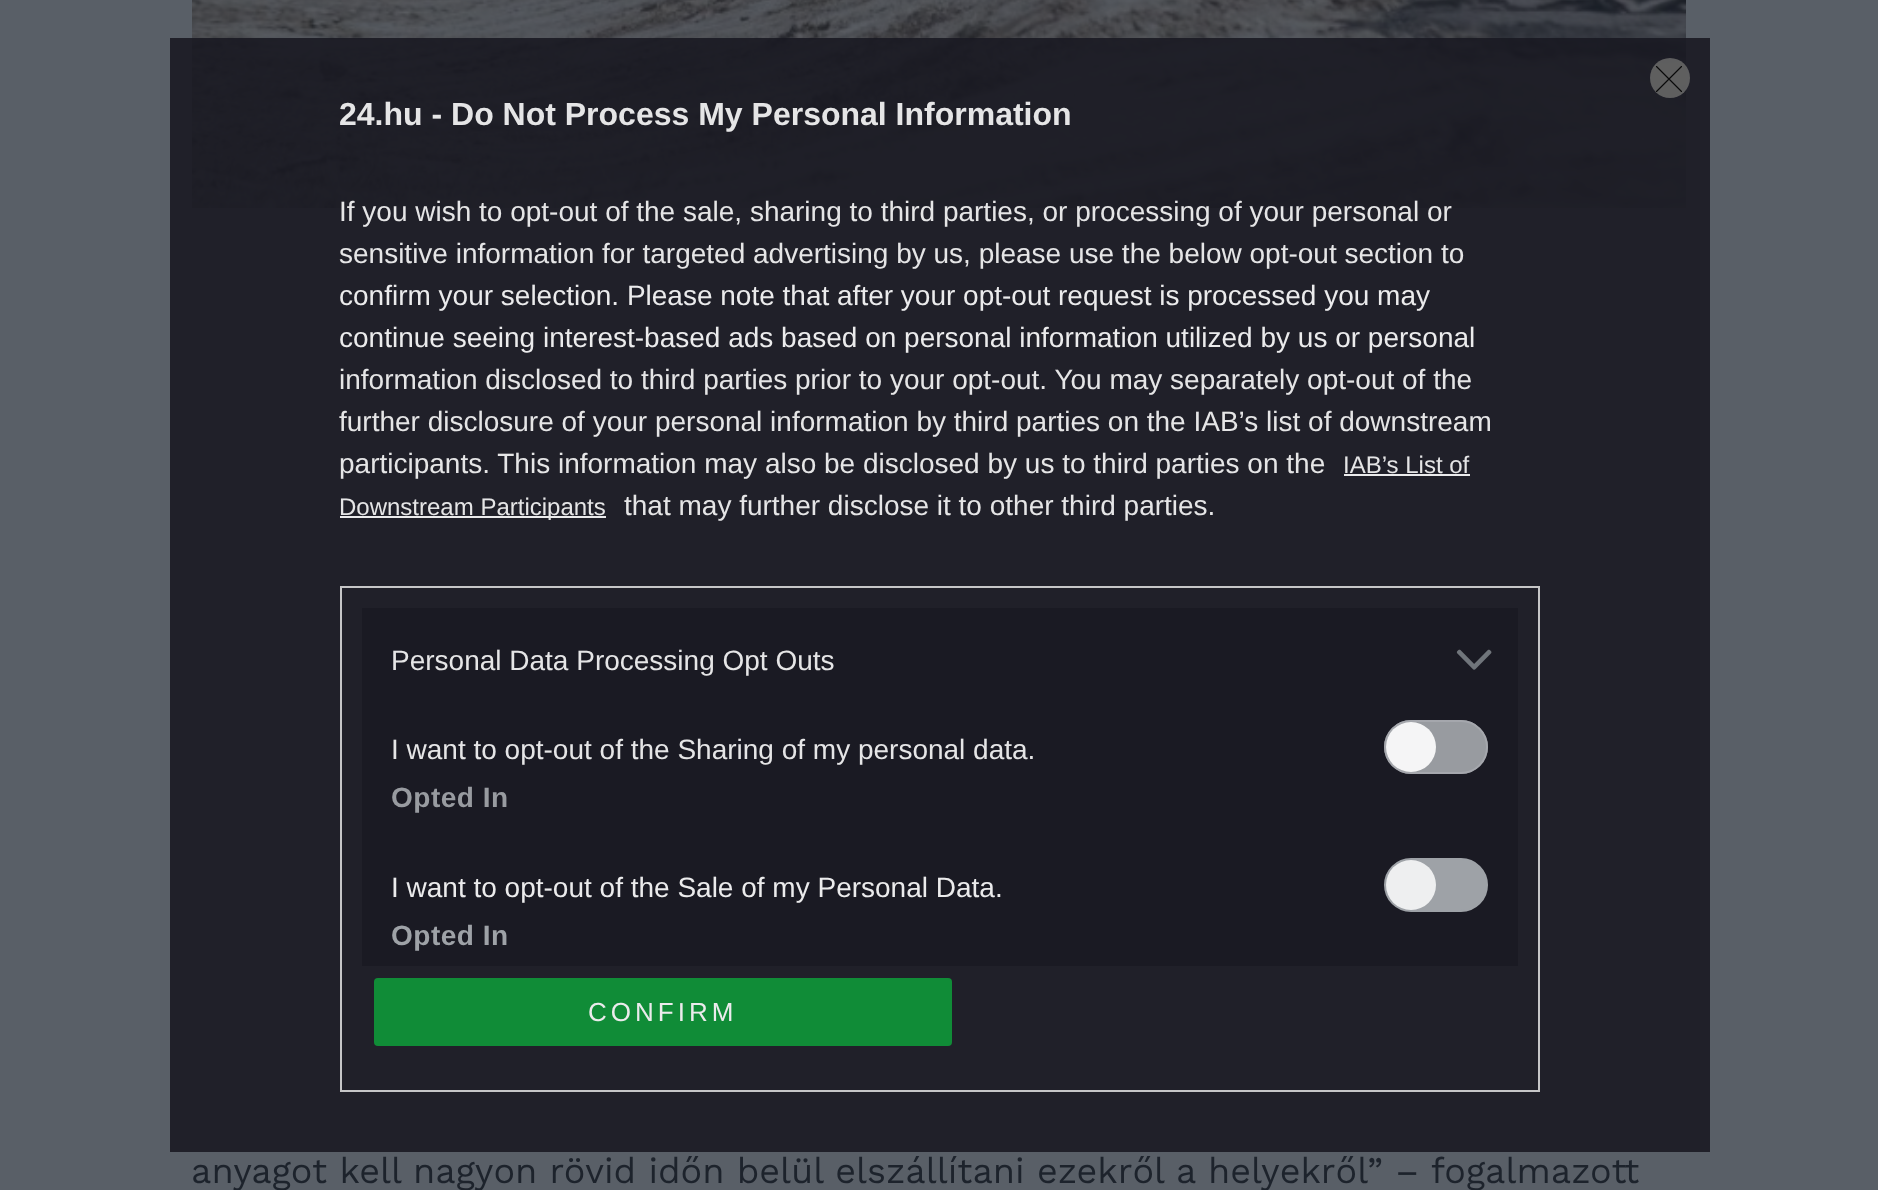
(async () => {
  const canvas = document.querySelector("canvas");
  canvas.width = 1878;
  canvas.height = 1190;
  const ctx = canvas.getContext("2d");
  ctx.miterLimit = 4;
  ctx.fontKerning = "normal";
  async function loadImage(src) {
    const img = new Image();
    img.src = src;
    await img.decode();
    return img;
  }
  let path;

  ctx.fillStyle = "#595f67";
  ctx.fillRect(0, 0, 1878, 1190);
  ctx.drawImage(await loadImage("img/2.png"), 192, 0, 1494, 208);
  ctx.fillStyle = "rgba(25, 25, 34, 0.9)";
  ctx.fillRect(170, 38, 1540, 1114);
  ctx.fillStyle = "rgba(102, 102, 102, 0.9)";
  ctx.beginPath();
  ctx.arc(1670, 78, 20, 0, Math.PI * 2);
  ctx.fill();
  path = new Path2D("M1656.5 66.5L1681.5 91.5M1681.5 66.5L1656.5 91.5");
  ctx.strokeStyle = "#09090a";
  ctx.lineWidth = 1.1;
  ctx.lineCap = "round";
  ctx.lineJoin = "round";
  ctx.stroke(path);
  ctx.fillStyle = "#ebebec";
  ctx.fillRect(1344, 474, 126, 2);
  ctx.fillRect(340, 516, 266, 2);
  ctx.strokeStyle = "rgba(216, 216, 216, 0.9)";
  ctx.lineWidth = 2;
  ctx.lineJoin = "miter";
  ctx.strokeRect(341, 587, 1198, 504);
  ctx.fillStyle = "rgba(25, 25, 34, 0.9)";
  ctx.fillRect(362, 608, 1156, 358);
  ctx.drawImage(await loadImage("img/1.png"), 1456, 649, 36, 21);
  ctx.fillStyle = "#989ba0";
  ctx.beginPath();
  ctx.roundRect(1384, 720, 104, 54, 27);
  ctx.fill();
  ctx.beginPath();
  ctx.roundRect(1385, 721, 102, 52, 26);
  ctx.strokeStyle = "rgba(166, 169, 174, 0.9)";
  ctx.stroke();
  ctx.fillStyle = "rgba(255, 255, 255, 0.9)";
  ctx.beginPath();
  ctx.arc(1411, 747, 25, 0, Math.PI * 2);
  ctx.fill();
  ctx.fillStyle = "#9ea2a7";
  ctx.beginPath();
  ctx.roundRect(1385, 859, 102, 52, 26);
  ctx.fill();
  ctx.strokeStyle = "#9ea2a7";
  ctx.stroke();
  ctx.fillStyle = "#eeeff0";
  ctx.beginPath();
  ctx.arc(1411, 885, 25, 0, Math.PI * 2);
  ctx.fill();
  ctx.fillStyle = "rgba(14, 152, 57, 0.9)";
  ctx.beginPath();
  ctx.roundRect(374, 978, 578, 68, 4);
  ctx.fill();
  ctx.font = "bold 32px Liberation Sans";
  ctx.fillStyle = "#e5e5e6";
  ctx.fillText("24.hu - Do Not Process My Personal Information", 339, 125);
  ctx.font = "28px Liberation Sans";
  ctx.fillText("If you wish to opt-out of the sale, sharing to third parties, or processing of your personal or", 339, 221);
  ctx.fillText("sensitive information for targeted advertising by us, please use the below opt-out section to", 339, 263);
  ctx.fillStyle = "#ebebec";
  ctx.fillText("confirm your selection. Please note that after your opt-out request is processed you may", 339, 305);
  ctx.fillText("continue seeing interest-based ads based on personal information utilized by us or personal", 339, 347);
  ctx.fillStyle = "#e5e5e6";
  for (const [text, x, y] of [
    ["information disclosed to third parties prior to your opt-out. You may separately opt-out of the", 339, 389],
    ["further disclosure of your personal information by third parties on the IAB’s list of downstream", 339, 431],
    ["participants. This information may also be disclosed by us to third parties on the", 339, 473],
  ]) {
    ctx.fillText(text, x, y);
  }
  ctx.font = "24px Liberation Sans";
  ctx.fillText("IAB’s List of", 1343, 473);
  ctx.fillText("Downstream Participants", 339, 515);
  ctx.font = "28px Liberation Sans";
  for (const [text, x, y] of [
    ["that may further disclose it to other third parties.", 624, 515],
    ["Personal Data Processing Opt Outs", 391, 670],
    ["I want to opt-out of the Sharing of my personal data.", 391, 759],
  ]) {
    ctx.fillText(text, x, y);
  }
  ctx.letterSpacing = "0.5px";
  ctx.font = "bold 28px Liberation Sans";
  ctx.fillStyle = "#989ba0";
  ctx.fillText("Opted In", 391, 807);
  ctx.letterSpacing = "0px";
  ctx.font = "28px Liberation Sans";
  ctx.fillStyle = "#ebebec";
  ctx.fillText("I want to opt-out of the Sale of my Personal Data.", 391, 897);
  ctx.letterSpacing = "0.5px";
  ctx.font = "bold 28px Liberation Sans";
  ctx.fillStyle = "#9ea2a7";
  ctx.fillText("Opted In", 391, 945);
  ctx.letterSpacing = "4px";
  ctx.font = "26px Liberation Sans";
  ctx.fillStyle = "#ebebec";
  ctx.fillText("CONFIRM", 588, 1021);
  ctx.letterSpacing = "0px";
  ctx.font = "36px Work Sans";
  ctx.fillStyle = "#1d232c";
  ctx.fillText("anyagot kell nagyon rövid időn belül elszállítani ezekről a helyekről” – fogalmazott", 191, 1183);
})();
